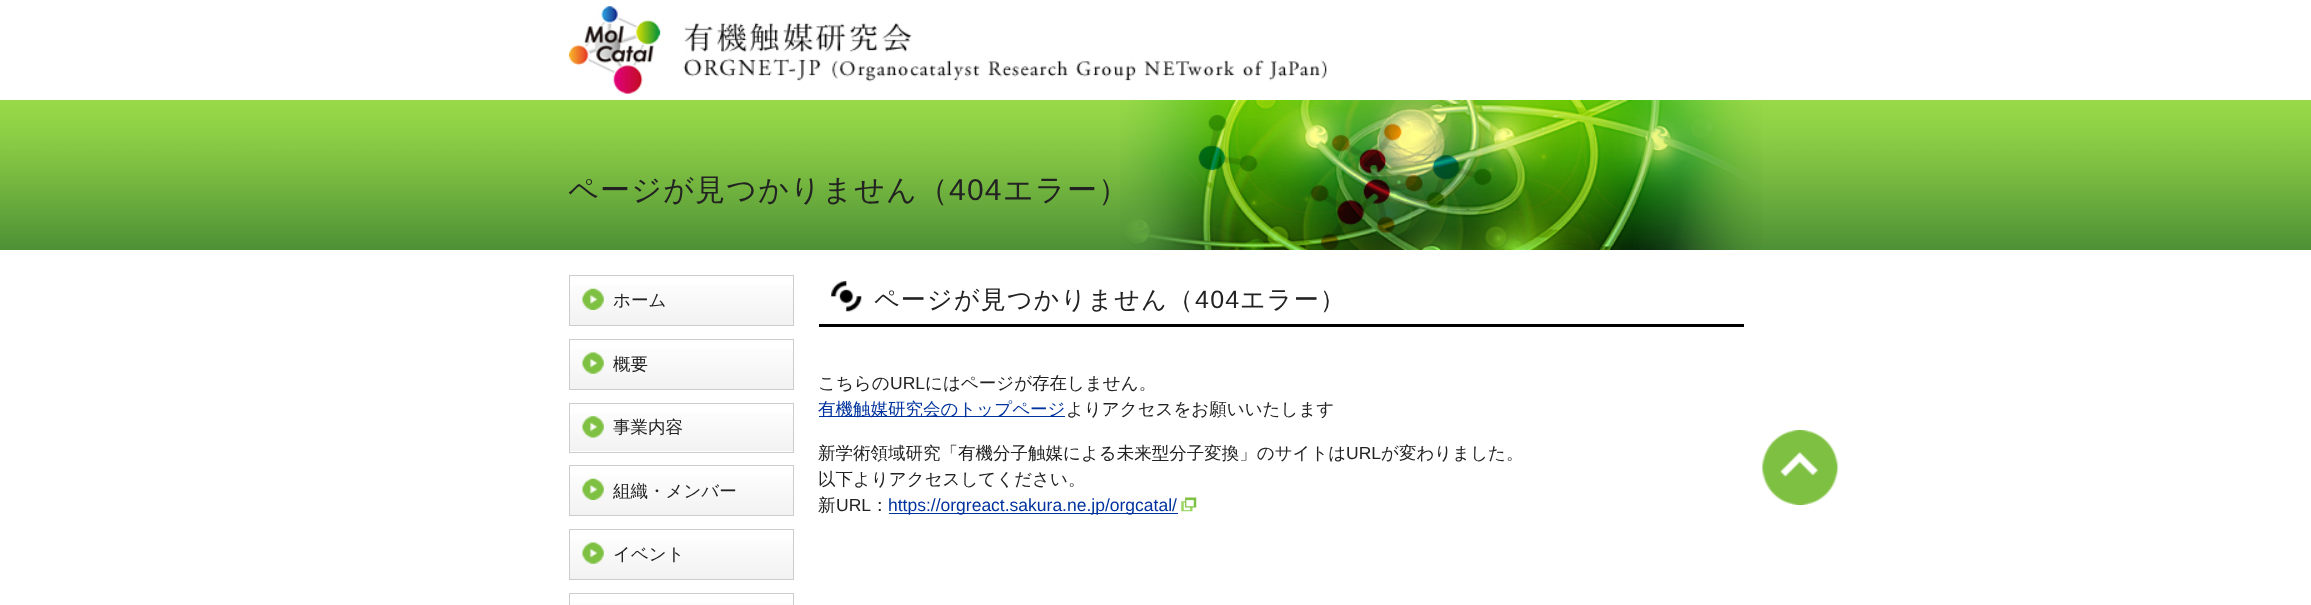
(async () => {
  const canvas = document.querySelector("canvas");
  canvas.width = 2311;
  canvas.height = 605;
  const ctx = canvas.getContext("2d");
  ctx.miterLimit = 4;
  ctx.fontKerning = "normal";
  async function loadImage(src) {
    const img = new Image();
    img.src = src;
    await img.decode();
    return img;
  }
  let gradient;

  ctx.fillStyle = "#ffffff";
  ctx.fillRect(0, 0, 2311, 605);
  ctx.drawImage(await loadImage("img/1.png"), 568, 6, 759, 88);
  ctx.drawImage(await loadImage("img/2.png"), 0, 100, 2311, 150);
  ctx.drawImage(await loadImage("img/3.png"), 1120, 100, 642, 150);
  gradient = ctx.createLinearGradient(681, 276, 681, 325);
  gradient.addColorStop(0, "#ffffff");
  gradient.addColorStop(1, "#f2f2f2");
  ctx.fillStyle = gradient;
  ctx.fillRect(570, 285, 223, 40);
  ctx.strokeStyle = "#cccccc";
  ctx.strokeRect(569.5, 275.5, 224, 50);
  ctx.drawImage(await loadImage("img/4.png"), 582, 288, 22, 22);
  gradient = ctx.createLinearGradient(681, 340, 681, 389);
  gradient.addColorStop(0, "#ffffff");
  gradient.addColorStop(1, "#f2f2f2");
  ctx.fillStyle = gradient;
  ctx.fillRect(570, 349, 223, 40);
  ctx.strokeRect(569.5, 339.5, 224, 50);
  ctx.drawImage(await loadImage("img/5.png"), 582, 352, 22, 22);
  gradient = ctx.createLinearGradient(681, 404, 681, 451);
  gradient.addColorStop(0, "#ffffff");
  gradient.addColorStop(1, "#f2f2f2");
  ctx.fillStyle = gradient;
  ctx.fillRect(570, 413, 223, 38);
  ctx.strokeRect(569.5, 403.5, 224, 49);
  ctx.drawImage(await loadImage("img/6.png"), 582, 416, 22, 22);
  gradient = ctx.createLinearGradient(681, 466, 681, 515);
  gradient.addColorStop(0, "#ffffff");
  gradient.addColorStop(1, "#f2f2f2");
  ctx.fillStyle = gradient;
  ctx.fillRect(570, 475, 223, 40);
  ctx.strokeRect(569.5, 465.5, 224, 50);
  ctx.drawImage(await loadImage("img/7.png"), 582, 478, 22, 22);
  gradient = ctx.createLinearGradient(681, 530, 681, 579);
  gradient.addColorStop(0, "#ffffff");
  gradient.addColorStop(1, "#f2f2f2");
  ctx.fillStyle = gradient;
  ctx.fillRect(570, 539, 223, 40);
  ctx.strokeRect(569.5, 529.5, 224, 50);
  ctx.drawImage(await loadImage("img/5.png"), 582, 542, 22, 22);
  gradient = ctx.createLinearGradient(681, 594, 681, 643);
  gradient.addColorStop(0, "#ffffff");
  gradient.addColorStop(1, "#f2f2f2");
  ctx.fillStyle = gradient;
  ctx.fillRect(570, 603, 223, 2);
  ctx.strokeRect(569.5, 593.5, 224, 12);
  ctx.drawImage(await loadImage("img/8.png"), 831, 281, 31, 31);
  for (const [x, y, w, h, color] of [
    [819, 324, 925, 3, "#000000"],
    [819, 416, 246, 1, "#00339d"],
    [889, 513, 289, 1, "#00339d"],
  ]) {
    ctx.fillStyle = color;
    ctx.fillRect(x, y, w, h);
  }
  ctx.drawImage(await loadImage("img/9.png"), 1181, 497, 16, 15);
  ctx.drawImage(await loadImage("img/10.png"), 1762, 430, 77, 75);
  ctx.letterSpacing = "1.25px";
  ctx.font = "500 30px WenQuanYi Zen Hei";
  ctx.fillStyle = "#222222";
  ctx.fillText("ページが見つかりません（", 568, 200);
  ctx.font = "30px Liberation Sans";
  ctx.fillText("404", 949, 200);
  ctx.font = "500 30px WenQuanYi Zen Hei";
  ctx.fillText("エラー）", 1003, 200);
  ctx.letterSpacing = "0px";
  ctx.font = "500 17.5px WenQuanYi Zen Hei";
  for (const [text, x, y] of [
    ["ホーム", 613, 306],
    ["概要", 613, 370],
    ["事業内容", 613, 433],
    ["組織・メンバー", 613, 497],
    ["イベント", 613, 560],
  ]) {
    ctx.fillText(text, x, y);
  }
  ctx.letterSpacing = "1.25px";
  ctx.font = "500 25px WenQuanYi Zen Hei";
  ctx.fillText("ページが見つかりません（", 874, 308);
  ctx.font = "25px Liberation Sans";
  ctx.fillText("404", 1195, 308);
  ctx.font = "500 25px WenQuanYi Zen Hei";
  ctx.fillText("エラー）", 1240, 308);
  ctx.letterSpacing = "0px";
  ctx.font = "500 17.5px WenQuanYi Zen Hei";
  ctx.fillText("こちらの", 818, 389);
  ctx.font = "17.5px Liberation Sans";
  ctx.fillText("URL", 890, 389);
  ctx.font = "500 17.5px WenQuanYi Zen Hei";
  ctx.fillText("にはページが存在しません。", 925, 389);
  ctx.fillStyle = "#00339d";
  ctx.fillText("有機触媒研究会のトップページ", 818, 415);
  ctx.fillStyle = "#222222";
  ctx.fillText("よりアクセスをお願いいたします", 1066, 415);
  ctx.fillText("新学術領域研究「有機分子触媒による未来型分子変換」のサイトは", 818, 459);
  ctx.font = "17.5px Liberation Sans";
  ctx.fillText("URL", 1346, 459);
  ctx.font = "500 17.5px WenQuanYi Zen Hei";
  for (const [text, x, y] of [
    ["が変わりました。", 1381, 459],
    ["以下よりアクセスしてください。", 818, 485],
    ["新", 818, 511],
  ]) {
    ctx.fillText(text, x, y);
  }
  ctx.font = "17.5px Liberation Sans";
  ctx.fillText("URL", 836, 511);
  ctx.font = "500 17.5px WenQuanYi Zen Hei";
  ctx.fillText("：", 871, 511);
  ctx.font = "17.5px Liberation Sans";
  ctx.fillStyle = "#00339d";
  ctx.fillText("https://orgreact.sakura.ne.jp/orgcatal/", 888, 511);
})();
